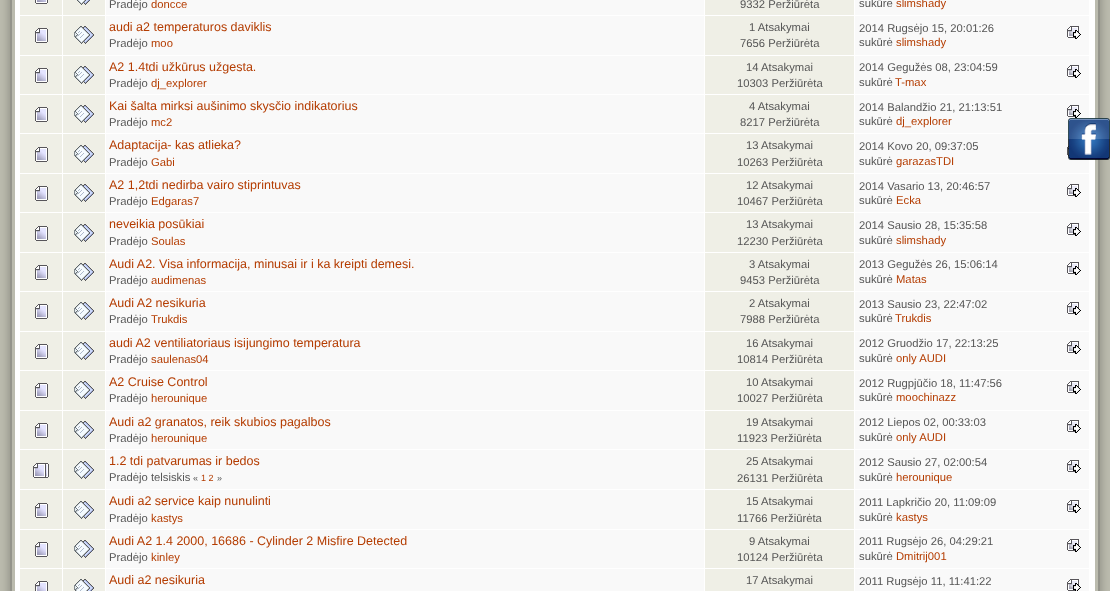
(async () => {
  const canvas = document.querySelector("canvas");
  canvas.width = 1110;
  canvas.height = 591;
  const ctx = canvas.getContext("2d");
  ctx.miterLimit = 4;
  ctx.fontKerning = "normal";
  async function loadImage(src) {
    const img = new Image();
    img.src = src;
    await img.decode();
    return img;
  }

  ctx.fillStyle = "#ffffff";
  ctx.fillRect(0, 0, 1110, 591);
  ctx.drawImage(await loadImage("img/1.png"), 1095, 0, 15, 591);
  ctx.drawImage(await loadImage("img/2.png"), 0, 0, 15, 591);
  ctx.fillStyle = "#efefe6";
  ctx.fillRect(20, 0, 42, 15);
  ctx.drawImage(await loadImage("img/3.png"), 35, 0, 13, 4);
  ctx.fillRect(63, 0, 42, 15);
  ctx.drawImage(await loadImage("img/4.png"), 77, 0, 13, 5);
  for (const [x, y, w, h, color] of [
    [106, 0, 598, 15, "#f9f9f9"],
    [705, 0, 149, 15, "#efefe6"],
    [855, 0, 234, 15, "#f9f9f9"],
    [20, 16, 42, 39, "#efefe6"],
  ]) {
    ctx.fillStyle = color;
    ctx.fillRect(x, y, w, h);
  }
  ctx.drawImage(await loadImage("img/5.png"), 35, 28, 13, 15);
  ctx.fillRect(63, 16, 42, 39);
  ctx.drawImage(await loadImage("img/6.png"), 74, 26, 20, 18);
  for (const [x, y, w, h, color] of [
    [106, 16, 598, 39, "#f9f9f9"],
    [705, 16, 149, 39, "#efefe6"],
    [855, 16, 234, 39, "#f9f9f9"],
  ]) {
    ctx.fillStyle = color;
    ctx.fillRect(x, y, w, h);
  }
  ctx.drawImage(await loadImage("img/7.png"), 1067, 26, 14, 13);
  ctx.fillStyle = "#efefe6";
  ctx.fillRect(20, 56, 42, 38);
  ctx.drawImage(await loadImage("img/5.png"), 35, 68, 13, 15);
  ctx.fillRect(63, 56, 42, 38);
  ctx.drawImage(await loadImage("img/6.png"), 74, 66, 20, 18);
  for (const [x, y, w, h, color] of [
    [106, 56, 598, 38, "#f9f9f9"],
    [705, 56, 149, 38, "#efefe6"],
    [855, 56, 234, 38, "#f9f9f9"],
  ]) {
    ctx.fillStyle = color;
    ctx.fillRect(x, y, w, h);
  }
  ctx.drawImage(await loadImage("img/7.png"), 1067, 65, 14, 13);
  ctx.fillStyle = "#efefe6";
  ctx.fillRect(20, 95, 42, 38);
  ctx.drawImage(await loadImage("img/5.png"), 35, 107, 13, 15);
  ctx.fillRect(63, 95, 42, 38);
  ctx.drawImage(await loadImage("img/6.png"), 74, 105, 20, 18);
  for (const [x, y, w, h, color] of [
    [106, 95, 598, 38, "#f9f9f9"],
    [705, 95, 149, 38, "#efefe6"],
    [855, 95, 234, 38, "#f9f9f9"],
  ]) {
    ctx.fillStyle = color;
    ctx.fillRect(x, y, w, h);
  }
  ctx.drawImage(await loadImage("img/7.png"), 1067, 105, 14, 13);
  ctx.fillStyle = "#efefe6";
  ctx.fillRect(20, 134, 42, 39);
  ctx.drawImage(await loadImage("img/5.png"), 35, 147, 13, 15);
  ctx.fillRect(63, 134, 42, 39);
  ctx.drawImage(await loadImage("img/6.png"), 74, 145, 20, 18);
  for (const [x, y, w, h, color] of [
    [106, 134, 598, 39, "#f9f9f9"],
    [705, 134, 149, 39, "#efefe6"],
    [855, 134, 234, 39, "#f9f9f9"],
  ]) {
    ctx.fillStyle = color;
    ctx.fillRect(x, y, w, h);
  }
  ctx.drawImage(await loadImage("img/8.png"), 1067, 146, 2, 10);
  ctx.fillStyle = "#efefe6";
  ctx.fillRect(20, 174, 42, 38);
  ctx.drawImage(await loadImage("img/5.png"), 35, 186, 13, 15);
  ctx.fillRect(63, 174, 42, 38);
  ctx.drawImage(await loadImage("img/6.png"), 74, 184, 20, 18);
  for (const [x, y, w, h, color] of [
    [106, 174, 598, 38, "#f9f9f9"],
    [705, 174, 149, 38, "#efefe6"],
    [855, 174, 234, 38, "#f9f9f9"],
  ]) {
    ctx.fillStyle = color;
    ctx.fillRect(x, y, w, h);
  }
  ctx.drawImage(await loadImage("img/7.png"), 1067, 184, 14, 13);
  ctx.fillStyle = "#efefe6";
  ctx.fillRect(20, 213, 42, 39);
  ctx.drawImage(await loadImage("img/5.png"), 35, 226, 13, 15);
  ctx.fillRect(63, 213, 42, 39);
  ctx.drawImage(await loadImage("img/6.png"), 74, 224, 20, 18);
  for (const [x, y, w, h, color] of [
    [106, 213, 598, 39, "#f9f9f9"],
    [705, 213, 149, 39, "#efefe6"],
    [855, 213, 234, 39, "#f9f9f9"],
  ]) {
    ctx.fillStyle = color;
    ctx.fillRect(x, y, w, h);
  }
  ctx.drawImage(await loadImage("img/7.png"), 1067, 223, 14, 13);
  ctx.fillStyle = "#efefe6";
  ctx.fillRect(20, 253, 42, 38);
  ctx.drawImage(await loadImage("img/5.png"), 35, 265, 13, 15);
  ctx.fillRect(63, 253, 42, 38);
  ctx.drawImage(await loadImage("img/6.png"), 74, 263, 20, 18);
  for (const [x, y, w, h, color] of [
    [106, 253, 598, 38, "#f9f9f9"],
    [705, 253, 149, 38, "#efefe6"],
    [855, 253, 234, 38, "#f9f9f9"],
  ]) {
    ctx.fillStyle = color;
    ctx.fillRect(x, y, w, h);
  }
  ctx.drawImage(await loadImage("img/7.png"), 1067, 262, 14, 13);
  ctx.fillStyle = "#efefe6";
  ctx.fillRect(20, 292, 42, 39);
  ctx.drawImage(await loadImage("img/5.png"), 35, 304, 13, 15);
  ctx.fillRect(63, 292, 42, 39);
  ctx.drawImage(await loadImage("img/6.png"), 74, 302, 20, 18);
  for (const [x, y, w, h, color] of [
    [106, 292, 598, 39, "#f9f9f9"],
    [705, 292, 149, 39, "#efefe6"],
    [855, 292, 234, 39, "#f9f9f9"],
  ]) {
    ctx.fillStyle = color;
    ctx.fillRect(x, y, w, h);
  }
  ctx.drawImage(await loadImage("img/7.png"), 1067, 302, 14, 13);
  ctx.fillStyle = "#efefe6";
  ctx.fillRect(20, 332, 42, 38);
  ctx.drawImage(await loadImage("img/5.png"), 35, 344, 13, 15);
  ctx.fillRect(63, 332, 42, 38);
  ctx.drawImage(await loadImage("img/6.png"), 74, 342, 20, 18);
  for (const [x, y, w, h, color] of [
    [106, 332, 598, 38, "#f9f9f9"],
    [705, 332, 149, 38, "#efefe6"],
    [855, 332, 234, 38, "#f9f9f9"],
  ]) {
    ctx.fillStyle = color;
    ctx.fillRect(x, y, w, h);
  }
  ctx.drawImage(await loadImage("img/7.png"), 1067, 341, 14, 13);
  ctx.fillStyle = "#efefe6";
  ctx.fillRect(20, 371, 42, 39);
  ctx.drawImage(await loadImage("img/5.png"), 35, 383, 13, 15);
  ctx.fillRect(63, 371, 42, 39);
  ctx.drawImage(await loadImage("img/6.png"), 74, 381, 20, 18);
  for (const [x, y, w, h, color] of [
    [106, 371, 598, 39, "#f9f9f9"],
    [705, 371, 149, 39, "#efefe6"],
    [855, 371, 234, 39, "#f9f9f9"],
  ]) {
    ctx.fillStyle = color;
    ctx.fillRect(x, y, w, h);
  }
  ctx.drawImage(await loadImage("img/7.png"), 1067, 381, 14, 13);
  ctx.fillStyle = "#efefe6";
  ctx.fillRect(20, 411, 42, 38);
  ctx.drawImage(await loadImage("img/5.png"), 35, 423, 13, 15);
  ctx.fillRect(63, 411, 42, 38);
  ctx.drawImage(await loadImage("img/6.png"), 74, 421, 20, 18);
  for (const [x, y, w, h, color] of [
    [106, 411, 598, 38, "#f9f9f9"],
    [705, 411, 149, 38, "#efefe6"],
    [855, 411, 234, 38, "#f9f9f9"],
  ]) {
    ctx.fillStyle = color;
    ctx.fillRect(x, y, w, h);
  }
  ctx.drawImage(await loadImage("img/7.png"), 1067, 420, 14, 13);
  ctx.fillStyle = "#efefe6";
  ctx.fillRect(20, 450, 42, 39);
  ctx.drawImage(await loadImage("img/9.png"), 33, 463, 16, 15);
  ctx.fillRect(63, 450, 42, 39);
  ctx.drawImage(await loadImage("img/6.png"), 74, 461, 20, 18);
  for (const [x, y, w, h, color] of [
    [106, 450, 598, 39, "#f9f9f9"],
    [705, 450, 149, 39, "#efefe6"],
    [855, 450, 234, 39, "#f9f9f9"],
  ]) {
    ctx.fillStyle = color;
    ctx.fillRect(x, y, w, h);
  }
  ctx.drawImage(await loadImage("img/7.png"), 1067, 460, 14, 13);
  ctx.fillStyle = "#efefe6";
  ctx.fillRect(20, 490, 42, 39);
  ctx.drawImage(await loadImage("img/5.png"), 35, 503, 13, 15);
  ctx.fillRect(63, 490, 42, 39);
  ctx.drawImage(await loadImage("img/6.png"), 74, 501, 20, 18);
  for (const [x, y, w, h, color] of [
    [106, 490, 598, 39, "#f9f9f9"],
    [705, 490, 149, 39, "#efefe6"],
    [855, 490, 234, 39, "#f9f9f9"],
  ]) {
    ctx.fillStyle = color;
    ctx.fillRect(x, y, w, h);
  }
  ctx.drawImage(await loadImage("img/7.png"), 1067, 500, 14, 13);
  ctx.fillStyle = "#efefe6";
  ctx.fillRect(20, 530, 42, 38);
  ctx.drawImage(await loadImage("img/5.png"), 35, 542, 13, 15);
  ctx.fillRect(63, 530, 42, 38);
  ctx.drawImage(await loadImage("img/6.png"), 74, 540, 20, 18);
  for (const [x, y, w, h, color] of [
    [106, 530, 598, 38, "#f9f9f9"],
    [705, 530, 149, 38, "#efefe6"],
    [855, 530, 234, 38, "#f9f9f9"],
  ]) {
    ctx.fillStyle = color;
    ctx.fillRect(x, y, w, h);
  }
  ctx.drawImage(await loadImage("img/7.png"), 1067, 539, 14, 13);
  ctx.fillStyle = "#efefe6";
  ctx.fillRect(20, 569, 42, 22);
  ctx.drawImage(await loadImage("img/10.png"), 35, 581, 13, 10);
  ctx.fillRect(63, 569, 42, 22);
  ctx.drawImage(await loadImage("img/11.png"), 74, 579, 20, 12);
  for (const [x, y, w, h, color] of [
    [106, 569, 598, 22, "#f9f9f9"],
    [705, 569, 149, 22, "#efefe6"],
    [855, 569, 234, 22, "#f9f9f9"],
  ]) {
    ctx.fillStyle = color;
    ctx.fillRect(x, y, w, h);
  }
  ctx.drawImage(await loadImage("img/12.png"), 1067, 579, 14, 12);
  ctx.drawImage(await loadImage("img/13.png"), 1068, 118, 42, 42);
  ctx.font = "11.25px Liberation Sans";
  ctx.fillStyle = "#565656";
  ctx.fillText("Pradėjo", 109, 8);
  ctx.fillStyle = "#b43c01";
  ctx.fillText("doncce", 151, 8);
  ctx.fillStyle = "#565656";
  ctx.fillText("9332 Peržiūrėta", 740, 8);
  ctx.fillText("sukūrė", 859, 7);
  ctx.fillStyle = "#b43c01";
  ctx.fillText("slimshady", 896, 7);
  ctx.font = "12.5px Liberation Sans";
  ctx.fillText("audi a2 temperaturos daviklis", 109, 31);
  ctx.font = "11.25px Liberation Sans";
  ctx.fillStyle = "#565656";
  ctx.fillText("Pradėjo", 109, 47);
  ctx.fillStyle = "#b43c01";
  ctx.fillText("moo", 151, 47);
  ctx.fillStyle = "#565656";
  for (const [text, x, y] of [
    ["1 Atsakymai", 749, 31],
    ["7656 Peržiūrėta", 740, 47],
    ["2014 Rugsėjo 15, 20:01:26", 859, 32],
    ["sukūrė", 859, 46],
  ]) {
    ctx.fillText(text, x, y);
  }
  ctx.fillStyle = "#b43c01";
  ctx.fillText("slimshady", 896, 46);
  ctx.font = "12.5px Liberation Sans";
  ctx.fillText("A2 1.4tdi užkūrus užgesta.", 109, 71);
  ctx.font = "11.25px Liberation Sans";
  ctx.fillStyle = "#565656";
  ctx.fillText("Pradėjo", 109, 87);
  ctx.fillStyle = "#b43c01";
  ctx.fillText("dj_explorer", 151, 87);
  ctx.fillStyle = "#565656";
  for (const [text, x, y] of [
    ["14 Atsakymai", 746, 71],
    ["10303 Peržiūrėta", 737, 87],
    ["2014 Gegužės 08, 23:04:59", 859, 71],
    ["sukūrė", 859, 86],
  ]) {
    ctx.fillText(text, x, y);
  }
  ctx.fillStyle = "#b43c01";
  ctx.fillText("T-max", 895, 86);
  ctx.font = "12.5px Liberation Sans";
  ctx.fillText("Kai šalta mirksi aušinimo skysčio indikatorius", 109, 110);
  ctx.font = "11.25px Liberation Sans";
  ctx.fillStyle = "#565656";
  ctx.fillText("Pradėjo", 109, 126);
  ctx.fillStyle = "#b43c01";
  ctx.fillText("mc2", 151, 126);
  ctx.fillStyle = "#565656";
  for (const [text, x, y] of [
    ["4 Atsakymai", 749, 110],
    ["8217 Peržiūrėta", 740, 126],
    ["2014 Balandžio 21, 21:13:51", 859, 111],
    ["sukūrė", 859, 125],
  ]) {
    ctx.fillText(text, x, y);
  }
  ctx.fillStyle = "#b43c01";
  ctx.fillText("dj_explorer", 896, 125);
  ctx.font = "12.5px Liberation Sans";
  ctx.fillText("Adaptacija- kas atlieka?", 109, 149);
  ctx.font = "11.25px Liberation Sans";
  ctx.fillStyle = "#565656";
  ctx.fillText("Pradėjo", 109, 166);
  ctx.fillStyle = "#b43c01";
  ctx.fillText("Gabi", 151, 166);
  ctx.fillStyle = "#565656";
  for (const [text, x, y] of [
    ["13 Atsakymai", 746, 149],
    ["10263 Peržiūrėta", 737, 166],
    ["2014 Kovo 20, 09:37:05", 859, 150],
    ["sukūrė", 859, 165],
  ]) {
    ctx.fillText(text, x, y);
  }
  ctx.fillStyle = "#b43c01";
  ctx.fillText("garazasTDI", 896, 165);
  ctx.font = "12.5px Liberation Sans";
  ctx.fillText("A2 1,2tdi nedirba vairo stiprintuvas", 109, 189);
  ctx.font = "11.25px Liberation Sans";
  ctx.fillStyle = "#565656";
  ctx.fillText("Pradėjo", 109, 205);
  ctx.fillStyle = "#b43c01";
  ctx.fillText("Edgaras7", 151, 205);
  ctx.fillStyle = "#565656";
  for (const [text, x, y] of [
    ["12 Atsakymai", 746, 189],
    ["10467 Peržiūrėta", 737, 205],
    ["2014 Vasario 13, 20:46:57", 859, 190],
    ["sukūrė", 859, 204],
  ]) {
    ctx.fillText(text, x, y);
  }
  ctx.fillStyle = "#b43c01";
  ctx.fillText("Ecka", 896, 204);
  ctx.font = "12.5px Liberation Sans";
  ctx.fillText("neveikia posūkiai", 109, 228);
  ctx.font = "11.25px Liberation Sans";
  ctx.fillStyle = "#565656";
  ctx.fillText("Pradėjo", 109, 245);
  ctx.fillStyle = "#b43c01";
  ctx.fillText("Soulas", 151, 245);
  ctx.fillStyle = "#565656";
  for (const [text, x, y] of [
    ["13 Atsakymai", 746, 228],
    ["12230 Peržiūrėta", 737, 245],
    ["2014 Sausio 28, 15:35:58", 859, 229],
    ["sukūrė", 859, 244],
  ]) {
    ctx.fillText(text, x, y);
  }
  ctx.fillStyle = "#b43c01";
  ctx.fillText("slimshady", 896, 244);
  ctx.font = "12.5px Liberation Sans";
  ctx.fillText("Audi A2. Visa informacija, minusai ir i ka kreipti demesi.", 109, 268);
  ctx.font = "11.25px Liberation Sans";
  ctx.fillStyle = "#565656";
  ctx.fillText("Pradėjo", 109, 284);
  ctx.fillStyle = "#b43c01";
  ctx.fillText("audimenas", 151, 284);
  ctx.fillStyle = "#565656";
  for (const [text, x, y] of [
    ["3 Atsakymai", 749, 268],
    ["9453 Peržiūrėta", 740, 284],
    ["2013 Gegužės 26, 15:06:14", 859, 268],
    ["sukūrė", 859, 283],
  ]) {
    ctx.fillText(text, x, y);
  }
  ctx.fillStyle = "#b43c01";
  ctx.fillText("Matas", 896, 283);
  ctx.font = "12.5px Liberation Sans";
  ctx.fillText("Audi A2 nesikuria", 109, 307);
  ctx.font = "11.25px Liberation Sans";
  ctx.fillStyle = "#565656";
  ctx.fillText("Pradėjo", 109, 323);
  ctx.fillStyle = "#b43c01";
  ctx.fillText("Trukdis", 151, 323);
  ctx.fillStyle = "#565656";
  for (const [text, x, y] of [
    ["2 Atsakymai", 749, 307],
    ["7988 Peržiūrėta", 740, 323],
    ["2013 Sausio 23, 22:47:02", 859, 308],
    ["sukūrė", 859, 322],
  ]) {
    ctx.fillText(text, x, y);
  }
  ctx.fillStyle = "#b43c01";
  ctx.fillText("Trukdis", 895, 322);
  ctx.font = "12.5px Liberation Sans";
  ctx.fillText("audi A2 ventiliatoriaus isijungimo temperatura", 109, 347);
  ctx.font = "11.25px Liberation Sans";
  ctx.fillStyle = "#565656";
  ctx.fillText("Pradėjo", 109, 363);
  ctx.fillStyle = "#b43c01";
  ctx.fillText("saulenas04", 151, 363);
  ctx.fillStyle = "#565656";
  for (const [text, x, y] of [
    ["16 Atsakymai", 746, 347],
    ["10814 Peržiūrėta", 737, 363],
    ["2012 Gruodžio 17, 22:13:25", 859, 347],
    ["sukūrė", 859, 362],
  ]) {
    ctx.fillText(text, x, y);
  }
  ctx.fillStyle = "#b43c01";
  ctx.fillText("only AUDI", 896, 362);
  ctx.font = "12.5px Liberation Sans";
  ctx.fillText("A2 Cruise Control", 109, 386);
  ctx.font = "11.25px Liberation Sans";
  ctx.fillStyle = "#565656";
  ctx.fillText("Pradėjo", 109, 402);
  ctx.fillStyle = "#b43c01";
  ctx.fillText("herounique", 151, 402);
  ctx.fillStyle = "#565656";
  for (const [text, x, y] of [
    ["10 Atsakymai", 746, 386],
    ["10027 Peržiūrėta", 737, 402],
    ["2012 Rugpjūčio 18, 11:47:56", 859, 387],
    ["sukūrė", 859, 401],
  ]) {
    ctx.fillText(text, x, y);
  }
  ctx.fillStyle = "#b43c01";
  ctx.fillText("moochinazz", 896, 401);
  ctx.font = "12.5px Liberation Sans";
  ctx.fillText("Audi a2 granatos, reik skubios pagalbos", 109, 426);
  ctx.font = "11.25px Liberation Sans";
  ctx.fillStyle = "#565656";
  ctx.fillText("Pradėjo", 109, 442);
  ctx.fillStyle = "#b43c01";
  ctx.fillText("herounique", 151, 442);
  ctx.fillStyle = "#565656";
  for (const [text, x, y] of [
    ["19 Atsakymai", 746, 426],
    ["11923 Peržiūrėta", 737, 442],
    ["2012 Liepos 02, 00:33:03", 859, 426],
    ["sukūrė", 859, 441],
  ]) {
    ctx.fillText(text, x, y);
  }
  ctx.fillStyle = "#b43c01";
  ctx.fillText("only AUDI", 896, 441);
  ctx.font = "12.5px Liberation Sans";
  ctx.fillText("1.2 tdi patvarumas ir bedos", 109, 465);
  ctx.font = "11.25px Liberation Sans";
  ctx.fillStyle = "#565656";
  ctx.fillText("Pradėjo telsiskis", 109, 481);
  ctx.font = "9px Liberation Sans";
  ctx.fillText("«", 193, 481);
  ctx.fillStyle = "#b43c01";
  ctx.fillText("1 2", 201, 481);
  ctx.fillStyle = "#565656";
  ctx.fillText("»", 217, 481);
  ctx.font = "11.25px Liberation Sans";
  for (const [text, x, y] of [
    ["25 Atsakymai", 746, 465],
    ["26131 Peržiūrėta", 737, 482],
    ["2012 Sausio 27, 02:00:54", 859, 466],
    ["sukūrė", 859, 481],
  ]) {
    ctx.fillText(text, x, y);
  }
  ctx.fillStyle = "#b43c01";
  ctx.fillText("herounique", 896, 481);
  ctx.font = "12.5px Liberation Sans";
  ctx.fillText("Audi a2 service kaip nunulinti", 109, 505);
  ctx.font = "11.25px Liberation Sans";
  ctx.fillStyle = "#565656";
  ctx.fillText("Pradėjo", 109, 522);
  ctx.fillStyle = "#b43c01";
  ctx.fillText("kastys", 151, 522);
  ctx.fillStyle = "#565656";
  for (const [text, x, y] of [
    ["15 Atsakymai", 746, 505],
    ["11766 Peržiūrėta", 737, 522],
    ["2011 Lapkričio 20, 11:09:09", 859, 506],
    ["sukūrė", 859, 521],
  ]) {
    ctx.fillText(text, x, y);
  }
  ctx.fillStyle = "#b43c01";
  ctx.fillText("kastys", 896, 521);
  ctx.font = "12.5px Liberation Sans";
  ctx.fillText("Audi A2 1.4 2000, 16686 - Cylinder 2 Misfire Detected", 109, 545);
  ctx.font = "11.25px Liberation Sans";
  ctx.fillStyle = "#565656";
  ctx.fillText("Pradėjo", 109, 561);
  ctx.fillStyle = "#b43c01";
  ctx.fillText("kinley", 151, 561);
  ctx.fillStyle = "#565656";
  for (const [text, x, y] of [
    ["9 Atsakymai", 749, 545],
    ["10124 Peržiūrėta", 737, 561],
    ["2011 Rugsėjo 26, 04:29:21", 859, 545],
    ["sukūrė", 859, 560],
  ]) {
    ctx.fillText(text, x, y);
  }
  ctx.fillStyle = "#b43c01";
  ctx.fillText("Dmitrij001", 896, 560);
  ctx.font = "12.5px Liberation Sans";
  ctx.fillText("Audi a2 nesikuria", 109, 584);
  ctx.font = "11.25px Liberation Sans";
  ctx.fillStyle = "#565656";
  ctx.fillText("17 Atsakymai", 746, 584);
  ctx.fillText("2011 Rugsėjo 11, 11:41:22", 859, 585);
})();
